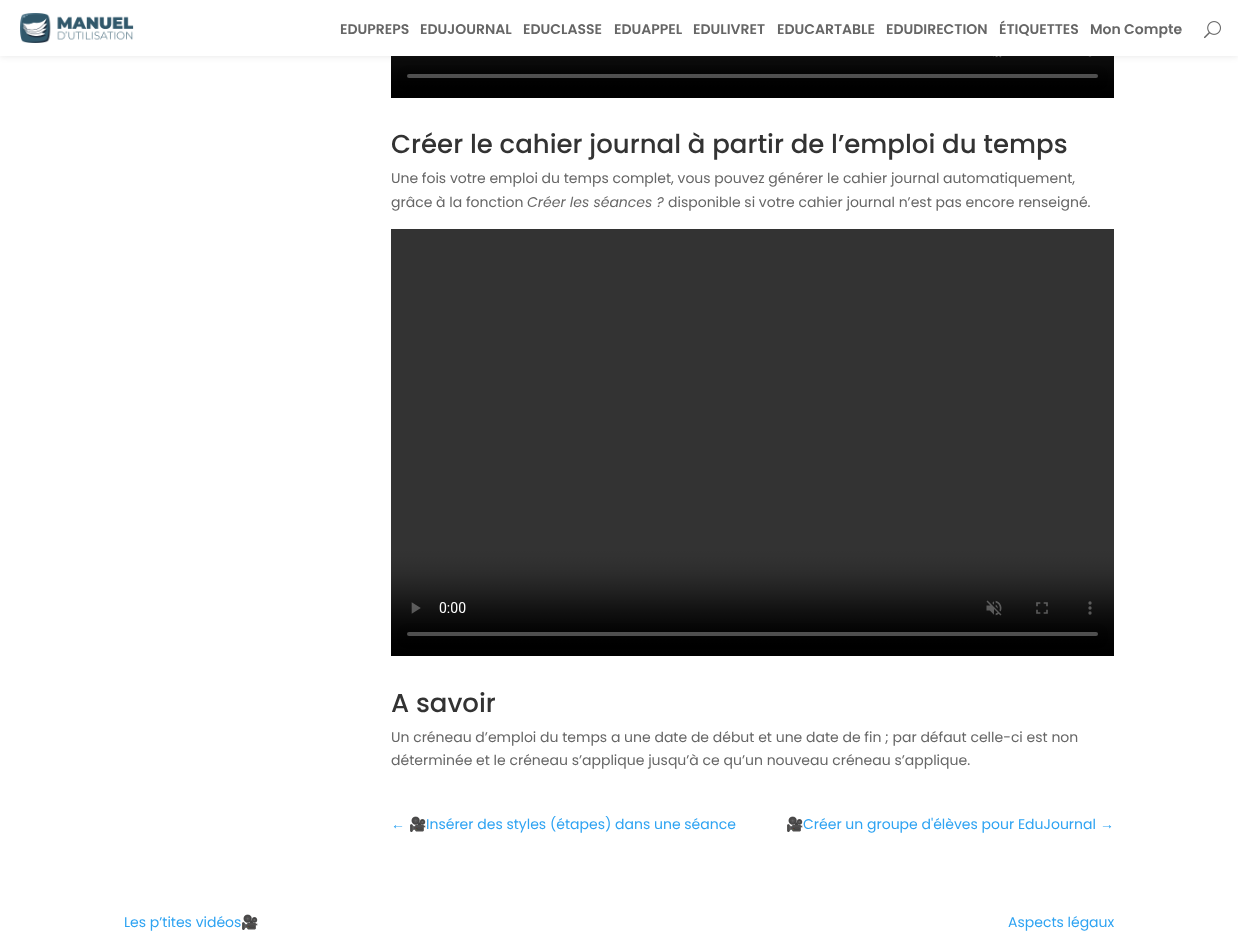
(async () => {
  const canvas = document.querySelector("canvas");
  canvas.width = 1238;
  canvas.height = 947;
  const ctx = canvas.getContext("2d");
  ctx.miterLimit = 4;
  ctx.fontKerning = "normal";
  async function loadImage(src) {
    const img = new Image();
    img.src = src;
    await img.decode();
    return img;
  }

  ctx.fillStyle = "#ffffff";
  ctx.fillRect(0, 0, 1238, 947);
  ctx.drawImage(await loadImage("img/3.png"), 391, 56, 723, 42);
  ctx.fillStyle = "rgba(0, 0, 0, 0.1)";
  ctx.filter = "blur(3.5px)";
  ctx.beginPath();
  ctx.rect(0, 0, 1238, 56);
  ctx.fill();
  ctx.filter = "none";
  ctx.fillStyle = "#ffffff";
  ctx.fillRect(0, 0, 1238, 56);
  ctx.drawImage(await loadImage("img/1.png"), 20, 13, 114, 30);
  ctx.drawImage(await loadImage("img/2.png"), 1204, 21, 17, 18);
  ctx.drawImage(await loadImage("img/4.png"), 391, 229, 723, 427);
  ctx.font = "600 14px Poppins";
  ctx.fillStyle = "#666666";
  for (const [text, x, y] of [
    ["EDUPREPS", 340, 34],
    ["EDUJOURNAL", 420, 34],
    ["EDUCLASSE", 523, 34],
    ["EDUAPPEL", 614, 34],
    ["EDULIVRET", 693, 34],
    ["EDUCARTABLE", 777, 34],
    ["EDUDIRECTION", 886, 34],
    ["ÉTIQUETTES", 999, 34],
    ["Mon Compte", 1090, 34],
  ]) {
    ctx.fillText(text, x, y);
  }
  ctx.font = "500 26px Poppins";
  ctx.fillStyle = "#333333";
  ctx.fillText("Créer le cahier journal à partir de l’emploi du temps", 391, 153);
  ctx.font = "14px Poppins";
  ctx.fillStyle = "#666666";
  ctx.fillText("Une fois votre emploi du temps complet, vous pouvez générer le cahier journal automatiquement,", 391, 183);
  ctx.fillText("grâce à la fonction", 391, 207);
  ctx.font = "italic 14px Poppins";
  ctx.fillText("Créer les séances ?", 527, 207);
  ctx.font = "14px Poppins";
  ctx.fillText("disponible si votre cahier journal n’est pas encore renseigné.", 668, 207);
  ctx.font = "500 26px Poppins";
  ctx.fillStyle = "#333333";
  ctx.fillText("A savoir", 391, 712);
  ctx.font = "14px Poppins";
  ctx.fillStyle = "#666666";
  ctx.fillText("Un créneau d’emploi du temps a une date de début et une date de fin ; par défaut celle-ci est non", 391, 742);
  ctx.fillText("déterminée et le créneau s’applique jusqu’à ce qu’un nouveau créneau s’applique.", 391, 765);
  ctx.font = "14px Liberation Sans";
  ctx.fillStyle = "#2ea3f2";
  ctx.fillText("←", 391, 829);
  ctx.font = "14px Noto Color Emoji";
  ctx.fillText("🎥", 409, 829);
  ctx.font = "14px Poppins";
  ctx.fillText("Insérer des styles (étapes) dans une séance", 426, 829);
  ctx.font = "14px Noto Color Emoji";
  ctx.fillText("🎥", 786, 829);
  ctx.font = "14px Poppins";
  ctx.fillText("Créer un groupe d'élèves pour EduJournal", 803, 829);
  ctx.font = "14px Liberation Sans";
  ctx.fillText("→", 1100, 829);
  ctx.font = "14px Poppins";
  ctx.fillText("Les p’tites vidéos", 124, 927);
  ctx.font = "14px Noto Color Emoji";
  ctx.fillText("🎥", 241, 927);
  ctx.font = "14px Poppins";
  ctx.fillText("Aspects légaux", 1008, 927);
})();
